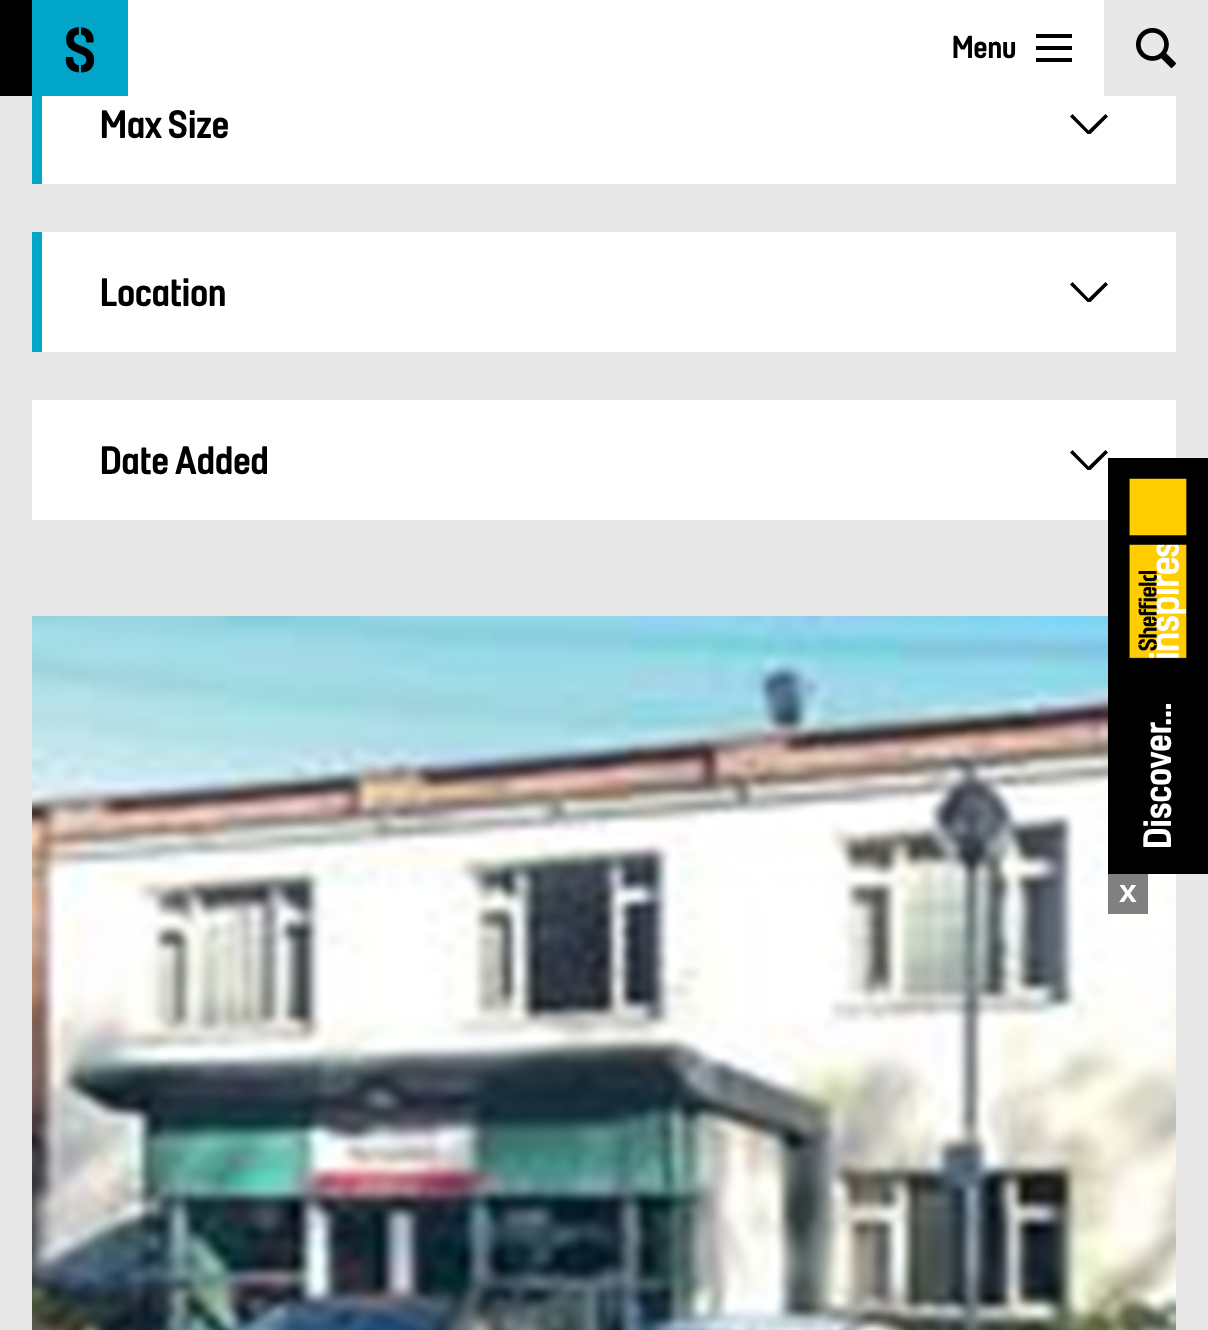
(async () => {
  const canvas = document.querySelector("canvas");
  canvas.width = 1208;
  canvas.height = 1330;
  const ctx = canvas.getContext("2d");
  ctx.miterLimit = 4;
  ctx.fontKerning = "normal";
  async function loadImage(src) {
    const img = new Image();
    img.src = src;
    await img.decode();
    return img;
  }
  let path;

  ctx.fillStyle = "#e8e8e8";
  ctx.fillRect(0, 0, 1208, 1330);
  for (const [x, y, w, h, color] of [
    [0, 0, 32, 96, "#000000"],
    [32, 0, 96, 96, "#00a5c8"],
    [128, 0, 976, 96, "#ffffff"],
    [1036, 46, 36, 4, "#000000"],
    [1036, 34, 36, 4, "#000000"],
    [1036, 58, 36, 4, "#000000"],
  ]) {
    ctx.fillStyle = color;
    ctx.fillRect(x, y, w, h);
  }
  ctx.drawImage(await loadImage("img/1.png"), 1136, 28, 40, 40);
  ctx.fillStyle = "#00a5c8";
  ctx.fillRect(32, 96, 10, 88);
  ctx.fillStyle = "#ffffff";
  ctx.fillRect(42, 96, 1134, 88);
  ctx.save();
  ctx.beginPath();
  ctx.rect(1070, 114, 38, 20);
  ctx.clip();
  ctx.fillStyle = "#000000";
  path = new Path2D("M1070 116.5L1072.5 114L1088.5 130.5L1105.5 114L1108 116.5L1089 135.5L1070 116.5");
  ctx.fill(path, "evenodd");
  ctx.restore();
  ctx.fillStyle = "#00a5c8";
  ctx.fillRect(32, 232, 10, 120);
  ctx.fillStyle = "#ffffff";
  ctx.fillRect(42, 232, 1134, 120);
  ctx.save();
  ctx.beginPath();
  ctx.rect(1070, 282, 38, 20);
  ctx.clip();
  ctx.fillStyle = "#000000";
  path = new Path2D("M1070 284.5L1072.5 282L1088.5 298.5L1105.5 282L1108 284.5L1089 303.5L1070 284.5");
  ctx.fill(path, "evenodd");
  ctx.restore();
  ctx.fillRect(32, 400, 1144, 120);
  ctx.save();
  ctx.beginPath();
  ctx.rect(1070, 450, 38, 20);
  ctx.clip();
  ctx.fillStyle = "#000000";
  path = new Path2D("M1070 452.5L1072.5 450L1088.5 466.5L1105.5 450L1108 452.5L1089 471.5L1070 452.5");
  ctx.fill(path, "evenodd");
  ctx.restore();
  ctx.drawImage(await loadImage("img/2.png"), 32, 616, 1144, 714);
  ctx.fillStyle = "#000000";
  ctx.fillRect(1108, 458, 100, 416);
  ctx.drawImage(await loadImage("img/3.png"), 1129, 478, 58, 181);
  ctx.fillStyle = "#808080";
  ctx.fillRect(1108, 874, 40, 40);
  ctx.font = "64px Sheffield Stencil";
  ctx.fillStyle = "#000000";
  ctx.fillText("S", 64, 72);
  ctx.font = "32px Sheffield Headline";
  ctx.fillText("Menu", 952, 58);
  ctx.font = "40px Sheffield Headline";
  for (const [text, x, y] of [
    ["Max Size", 100, 138],
    ["Location", 100, 306],
    ["Date Added", 100, 474],
  ]) {
    ctx.fillText(text, x, y);
  }
  ctx.fillStyle = "#ffffff";
  ctx.save();
  ctx.translate(1171, 849);
  ctx.rotate(-90 * Math.PI / 180);
  ctx.fillText("Discover...", 0, 0);
  ctx.restore();
  ctx.font = "bold 32px Liberation Sans";
  ctx.fillText("x", 1119, 902);
})();
